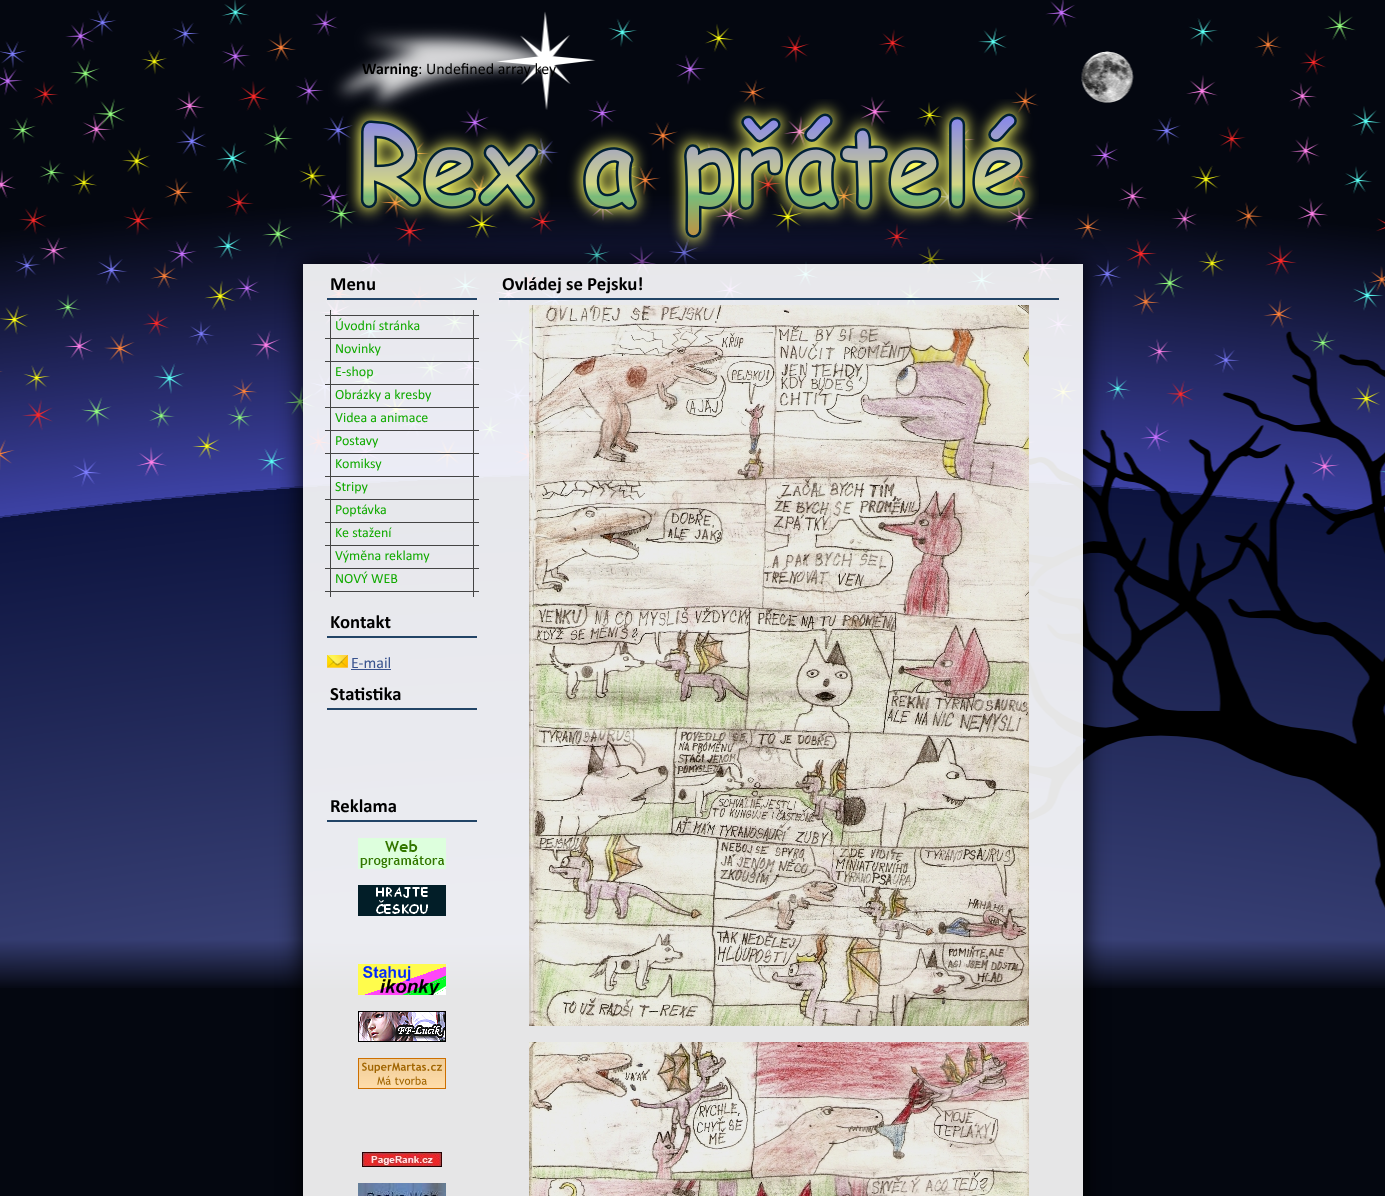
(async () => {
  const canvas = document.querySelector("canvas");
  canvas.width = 1385;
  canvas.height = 1196;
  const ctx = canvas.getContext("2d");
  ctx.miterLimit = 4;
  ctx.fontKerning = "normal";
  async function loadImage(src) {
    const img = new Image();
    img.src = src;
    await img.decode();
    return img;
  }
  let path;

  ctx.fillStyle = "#040710";
  ctx.fillRect(0, 0, 1385, 1196);
  ctx.drawImage(await loadImage("img/1.png"), 0, 0, 1385, 988);
  ctx.save();
  path = new Path2D("M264 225H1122V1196H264ZM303 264H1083V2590H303Z");
  ctx.clip(path, "evenodd");
  ctx.fillStyle = "#000000";
  ctx.filter = "blur(12.5px)";
  ctx.beginPath();
  ctx.rect(303, 264, 780, 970);
  ctx.fill();
  ctx.filter = "none";
  ctx.restore();
  ctx.drawImage(await loadImage("img/2.png"), 346, 99, 693, 153);
  for (const [x, y, w, h, color] of [
    [303, 264, 780, 932, "rgba(255, 255, 255, 0.9)"],
    [327, 298, 150, 2, "#224466"],
    [325, 315, 154, 1, "#444444"],
    [473, 310, 1, 5, "#444444"],
    [330, 310, 1, 5, "#444444"],
    [325, 338, 154, 1, "#444444"],
    [473, 316, 1, 22, "#444444"],
    [330, 316, 1, 22, "#444444"],
    [325, 361, 154, 1, "#444444"],
    [473, 339, 1, 22, "#444444"],
    [330, 339, 1, 22, "#444444"],
    [325, 384, 154, 1, "#444444"],
    [473, 362, 1, 22, "#444444"],
    [330, 362, 1, 22, "#444444"],
    [325, 407, 154, 1, "#444444"],
    [473, 385, 1, 22, "#444444"],
    [330, 385, 1, 22, "#444444"],
    [325, 430, 154, 1, "#444444"],
    [473, 408, 1, 22, "#444444"],
    [330, 408, 1, 22, "#444444"],
    [325, 453, 154, 1, "#444444"],
    [473, 431, 1, 22, "#444444"],
    [330, 431, 1, 22, "#444444"],
    [325, 476, 154, 1, "#444444"],
    [473, 454, 1, 22, "#444444"],
    [330, 454, 1, 22, "#444444"],
    [325, 499, 154, 1, "#444444"],
    [473, 477, 1, 22, "#444444"],
    [330, 477, 1, 22, "#444444"],
    [325, 522, 154, 1, "#444444"],
    [473, 500, 1, 22, "#444444"],
    [330, 500, 1, 22, "#444444"],
    [325, 545, 154, 1, "#444444"],
    [473, 523, 1, 22, "#444444"],
    [330, 523, 1, 22, "#444444"],
    [325, 568, 154, 1, "#444444"],
    [473, 546, 1, 22, "#444444"],
    [330, 546, 1, 22, "#444444"],
    [325, 591, 154, 1, "#444444"],
    [473, 569, 1, 22, "#444444"],
    [330, 569, 1, 22, "#444444"],
    [473, 592, 1, 5, "#444444"],
    [330, 592, 1, 5, "#444444"],
    [327, 636, 150, 2, "#224466"],
  ]) {
    ctx.fillStyle = color;
    ctx.fillRect(x, y, w, h);
  }
  ctx.drawImage(await loadImage("img/3.png"), 327, 655, 21, 13);
  for (const [x, y, w, h, color] of [
    [351, 669, 40, 1, "#38528e"],
    [327, 708, 150, 2, "#224466"],
    [327, 820, 150, 2, "#224466"],
  ]) {
    ctx.fillStyle = color;
    ctx.fillRect(x, y, w, h);
  }
  ctx.drawImage(await loadImage("img/4.png"), 358, 838, 88, 31);
  ctx.drawImage(await loadImage("img/5.png"), 358, 885, 88, 31);
  ctx.drawImage(await loadImage("img/6.png"), 358, 964, 88, 31);
  ctx.drawImage(await loadImage("img/7.png"), 358, 1011, 88, 31);
  ctx.drawImage(await loadImage("img/8.png"), 358, 1058, 88, 31);
  ctx.drawImage(await loadImage("img/9.png"), 362, 1152, 80, 15);
  ctx.drawImage(await loadImage("img/10.png"), 358, 1183, 88, 13);
  ctx.fillRect(499, 298, 560, 2);
  ctx.drawImage(await loadImage("img/11.png"), 529, 305, 500, 721);
  ctx.drawImage(await loadImage("img/12.png"), 529, 1042, 500, 154);
  ctx.font = "bold 16px Calibri";
  ctx.fillStyle = "#000000";
  ctx.fillText("Warning", 362, 74);
  ctx.font = "16px Calibri";
  ctx.fillText(": Undefined array key", 418, 74);
  ctx.font = "bold 18.75px Calibri";
  ctx.fillText("Menu", 330, 290);
  ctx.font = "14px Calibri";
  ctx.fillStyle = "#11aa00";
  for (const [text, x, y] of [
    ["Úvodní stránka", 335, 330],
    ["Novinky", 335, 353],
    ["E-shop", 335, 376],
    ["Obrázky a kresby", 335, 399],
    ["Videa a animace", 335, 422],
    ["Postavy", 335, 445],
    ["Komiksy", 335, 468],
    ["Stripy", 335, 491],
    ["Poptávka", 335, 514],
    ["Ke stažení", 335, 537],
    ["Výměna reklamy", 335, 560],
    ["NOVÝ WEB", 335, 583],
  ]) {
    ctx.fillText(text, x, y);
  }
  ctx.font = "bold 18.75px Calibri";
  ctx.fillStyle = "#000000";
  ctx.fillText("Kontakt", 330, 628);
  ctx.font = "16px Calibri";
  ctx.fillStyle = "#38528e";
  ctx.fillText("E-mail", 351, 668);
  ctx.font = "bold 18.75px Calibri";
  ctx.fillStyle = "#000000";
  for (const [text, x, y] of [
    ["Statistika", 330, 700],
    ["Reklama", 330, 812],
    ["Ovládej se Pejsku!", 502, 290],
  ]) {
    ctx.fillText(text, x, y);
  }
})();
